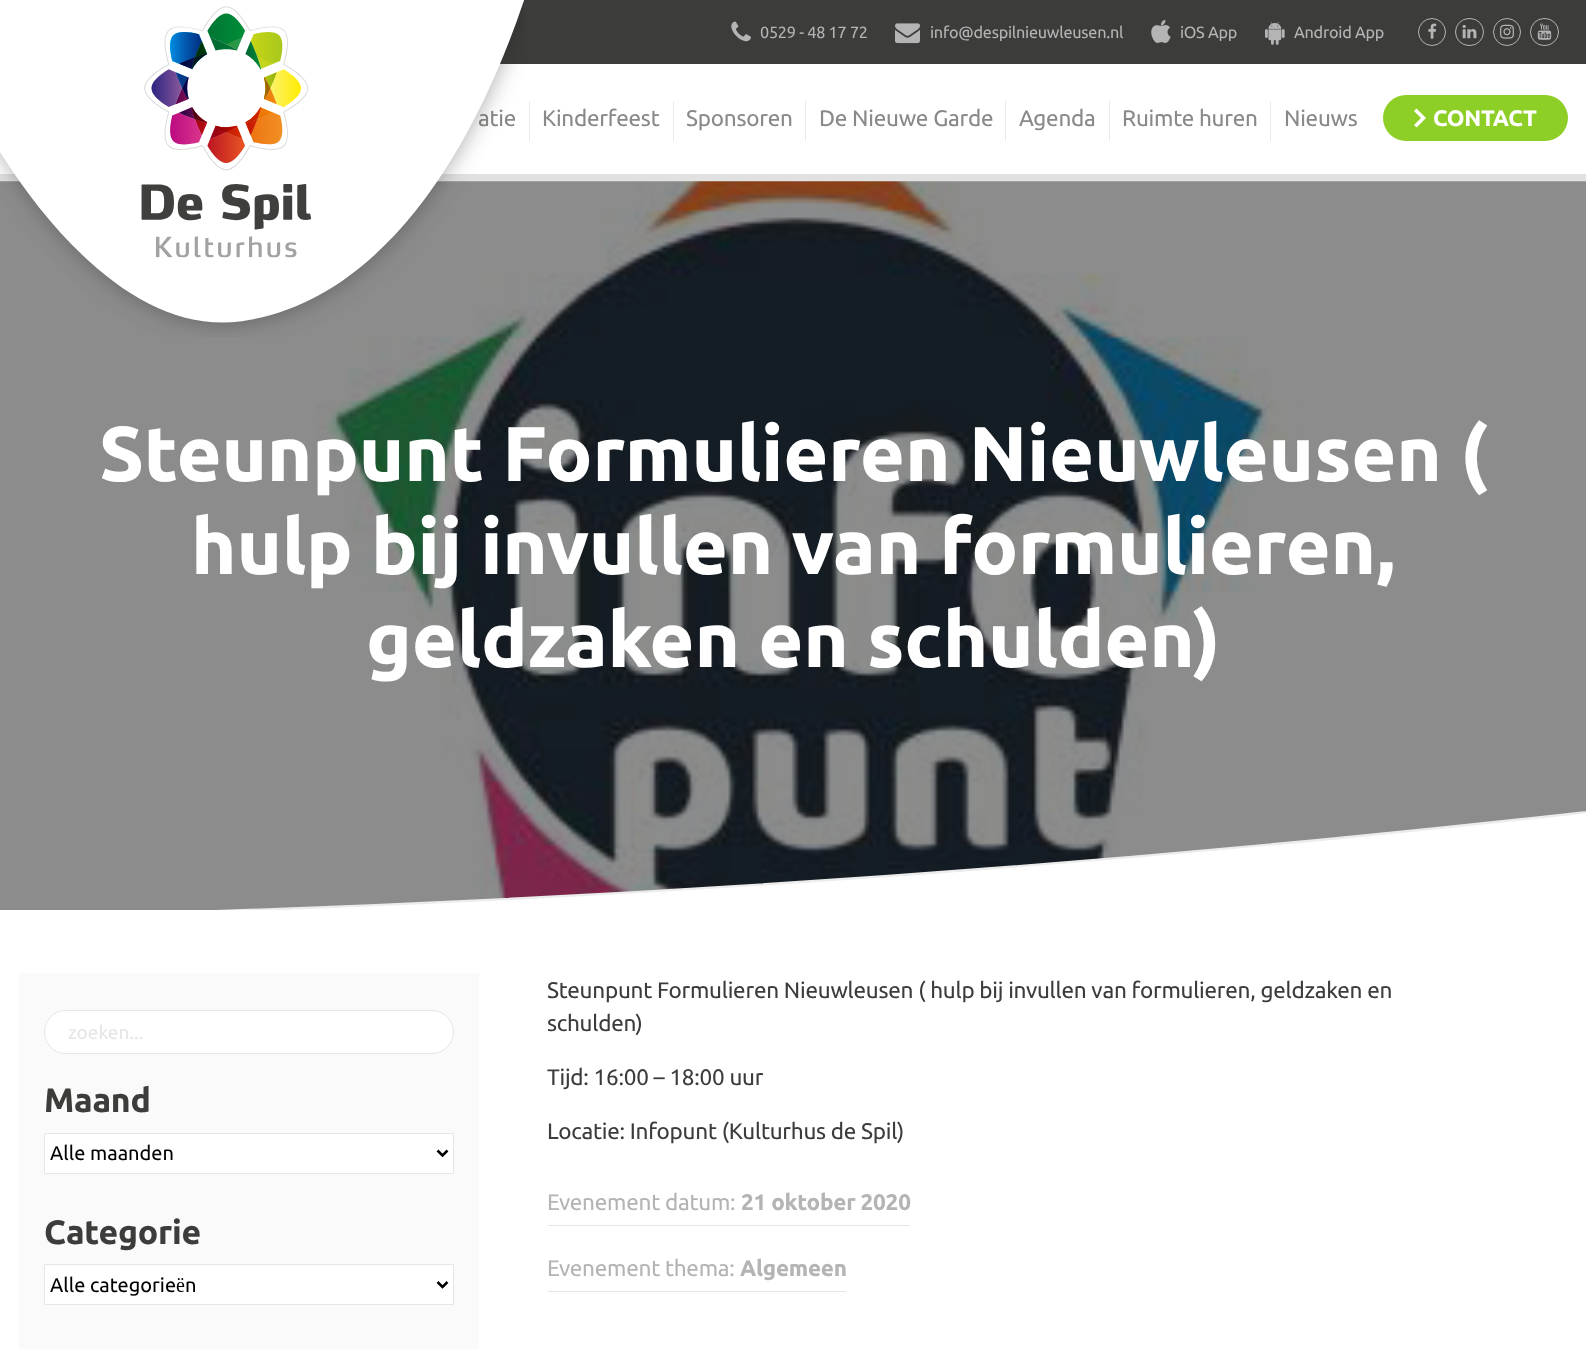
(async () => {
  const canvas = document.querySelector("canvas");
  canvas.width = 1586;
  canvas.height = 1351;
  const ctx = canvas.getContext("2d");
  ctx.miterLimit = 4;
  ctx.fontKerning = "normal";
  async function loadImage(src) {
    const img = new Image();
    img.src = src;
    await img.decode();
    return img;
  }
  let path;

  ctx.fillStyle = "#ffffff";
  ctx.fillRect(0, 0, 1586, 1351);
  ctx.fillStyle = "#3c3c3b";
  ctx.fillRect(500, 0, 1086, 64);
  ctx.drawImage(await loadImage("img/3.png"), 731, 21, 20, 21);
  ctx.drawImage(await loadImage("img/4.png"), 895, 23, 25, 21);
  ctx.drawImage(await loadImage("img/5.png"), 1151, 19, 20, 24);
  ctx.drawImage(await loadImage("img/6.png"), 1265, 21, 20, 24);
  ctx.beginPath();
  ctx.arc(1432, 32, 13.5, 0, Math.PI * 2);
  ctx.strokeStyle = "#b4b4b4";
  ctx.stroke();
  ctx.drawImage(await loadImage("img/7.png"), 1428, 23, 9, 16);
  ctx.beginPath();
  ctx.roundRect(1455.5, 18.5, 28, 27, 13.5);
  ctx.stroke();
  ctx.drawImage(await loadImage("img/8.png"), 1462, 24, 15, 15);
  ctx.beginPath();
  ctx.arc(1507, 32, 13.5, 0, Math.PI * 2);
  ctx.stroke();
  ctx.drawImage(await loadImage("img/9.png"), 1500, 24, 14, 15);
  ctx.beginPath();
  ctx.roundRect(1530.5, 18.5, 28, 27, 13.5);
  ctx.stroke();
  ctx.drawImage(await loadImage("img/10.png"), 1537, 23, 15, 17);
  for (const [x, y, w, h, color] of [
    [0, 174, 1586, 8, "#e2e1e1"],
    [673, 101, 1, 40, "#eaeaea"],
    [529, 101, 1, 40, "#eaeaea"],
    [1005, 101, 1, 40, "#eaeaea"],
    [805, 101, 1, 40, "#eaeaea"],
    [1270, 101, 1, 40, "#eaeaea"],
    [1109, 101, 1, 40, "#eaeaea"],
  ]) {
    ctx.fillStyle = color;
    ctx.fillRect(x, y, w, h);
  }
  ctx.fillStyle = "#8dcf27";
  ctx.beginPath();
  ctx.roundRect(1383, 95, 185, 46, 23);
  ctx.fill();
  ctx.fillStyle = "#ffffff";
  path = new Path2D("M1416.5 108.5L1414 111L1421 118L1414 125L1416.5 127.5L1426 118Z");
  ctx.fill(path);
  ctx.drawImage(await loadImage("img/11.png"), 0, 181, 1586, 729);
  ctx.drawImage(await loadImage("img/12.png"), 217, 811, 1369, 99);
  ctx.fillStyle = "#fafafa";
  ctx.fillRect(19, 973, 460, 376);
  ctx.fillStyle = "#ffffff";
  ctx.beginPath();
  ctx.roundRect(44.5, 1010.5, 409, 43, 21.5);
  ctx.fill();
  ctx.strokeStyle = "#e6e6e6";
  ctx.stroke();
  ctx.beginPath();
  ctx.rect(44.5, 1133.5, 409, 40);
  ctx.fill();
  ctx.stroke();
  path = new Path2D("M437.5 1150.5L442.5 1155.5L447.5 1150.5");
  ctx.strokeStyle = "#000000";
  ctx.lineWidth = 2.5;
  ctx.stroke(path);
  ctx.beginPath();
  ctx.rect(44.5, 1264.5, 409, 40);
  ctx.fill();
  ctx.strokeStyle = "#e6e6e6";
  ctx.lineWidth = 1;
  ctx.stroke();
  path = new Path2D("M437.5 1282L442.5 1287L447.5 1282");
  ctx.strokeStyle = "#000000";
  ctx.lineWidth = 2.5;
  ctx.stroke(path);
  ctx.fillStyle = "#e6e6e6";
  ctx.fillRect(548, 1225, 362, 1);
  ctx.fillRect(548, 1291, 298, 1);
  ctx.letterSpacing = "-0.25px";
  ctx.font = "16.25px Ubuntu";
  ctx.fillStyle = "#b4b4b4";
  for (const [text, x, y] of [
    ["0529 - 48 17 72", 760, 38],
    ["info@despilnieuwleusen.nl", 930, 38],
    ["iOS App", 1180, 38],
    ["Android App", 1294, 38],
  ]) {
    ctx.fillText(text, x, y);
  }
  ctx.font = "22.5px Ubuntu";
  ctx.fillStyle = "#898987";
  ctx.fillText("atie", 478, 126);
  ctx.drawImage(await loadImage("img/1.png"), 0, 0, 524, 337);
  ctx.drawImage(await loadImage("img/2.png"), 141, 6, 170, 252);
  for (const [text, x, y] of [
    ["Kinderfeest", 542, 126],
    ["Sponsoren", 686, 126],
    ["De Nieuwe Garde", 819, 126],
    ["Agenda", 1019, 126],
    ["Ruimte huren", 1122, 126],
    ["Nieuws", 1284, 126],
  ]) {
    ctx.fillText(text, x, y);
  }
  ctx.font = "bold 22.5px Ubuntu";
  ctx.fillStyle = "#ffffff";
  ctx.fillText("CONTACT", 1433, 126);
  ctx.font = "bold 77.5px Ubuntu";
  for (const [text, x, y] of [
    ["Steunpunt Formulieren Nieuwleusen (", 99, 481],
    ["hulp bij invullen van formulieren,", 191, 574],
    ["geldzaken en schulden)", 366, 667],
  ]) {
    ctx.fillText(text, x, y);
  }
  ctx.letterSpacing = "0px";
  ctx.font = "19px Ubuntu";
  ctx.fillStyle = "#e6e6e6";
  ctx.fillText("zoeken...", 68, 1039);
  ctx.letterSpacing = "-0.25px";
  ctx.font = "bold 33.75px Ubuntu";
  ctx.fillStyle = "#3c3c3b";
  ctx.fillText("Maand", 44, 1112);
  ctx.letterSpacing = "0px";
  ctx.font = "20px Ubuntu";
  ctx.fillStyle = "#000000";
  ctx.fillText("Alle maanden", 50, 1160);
  ctx.letterSpacing = "-0.25px";
  ctx.font = "bold 33.75px Ubuntu";
  ctx.fillStyle = "#3c3c3b";
  ctx.fillText("Categorie", 44, 1244);
  ctx.letterSpacing = "0px";
  ctx.font = "20px Ubuntu";
  ctx.fillStyle = "#000000";
  ctx.fillText("Alle categorieën", 50, 1292);
  ctx.letterSpacing = "-0.25px";
  ctx.font = "22.5px Ubuntu";
  ctx.fillStyle = "#3c3c3b";
  for (const [text, x, y] of [
    ["Steunpunt Formulieren Nieuwleusen ( hulp bij invullen van formulieren, geldzaken en", 547, 998],
    ["schulden)", 547, 1031],
    ["Tijd: 16:00 – 18:00 uur", 547, 1085],
    ["Locatie: Infopunt (Kulturhus de Spil)", 547, 1139],
  ]) {
    ctx.fillText(text, x, y);
  }
  ctx.fillStyle = "#b4b4b4";
  ctx.fillText("Evenement datum:", 547, 1210);
  ctx.font = "bold 22.5px Ubuntu";
  ctx.fillText("21 oktober 2020", 741, 1210);
  ctx.font = "22.5px Ubuntu";
  ctx.fillText("Evenement thema:", 547, 1276);
  ctx.font = "bold 22.5px Ubuntu";
  ctx.fillText("Algemeen", 740, 1276);
})();
